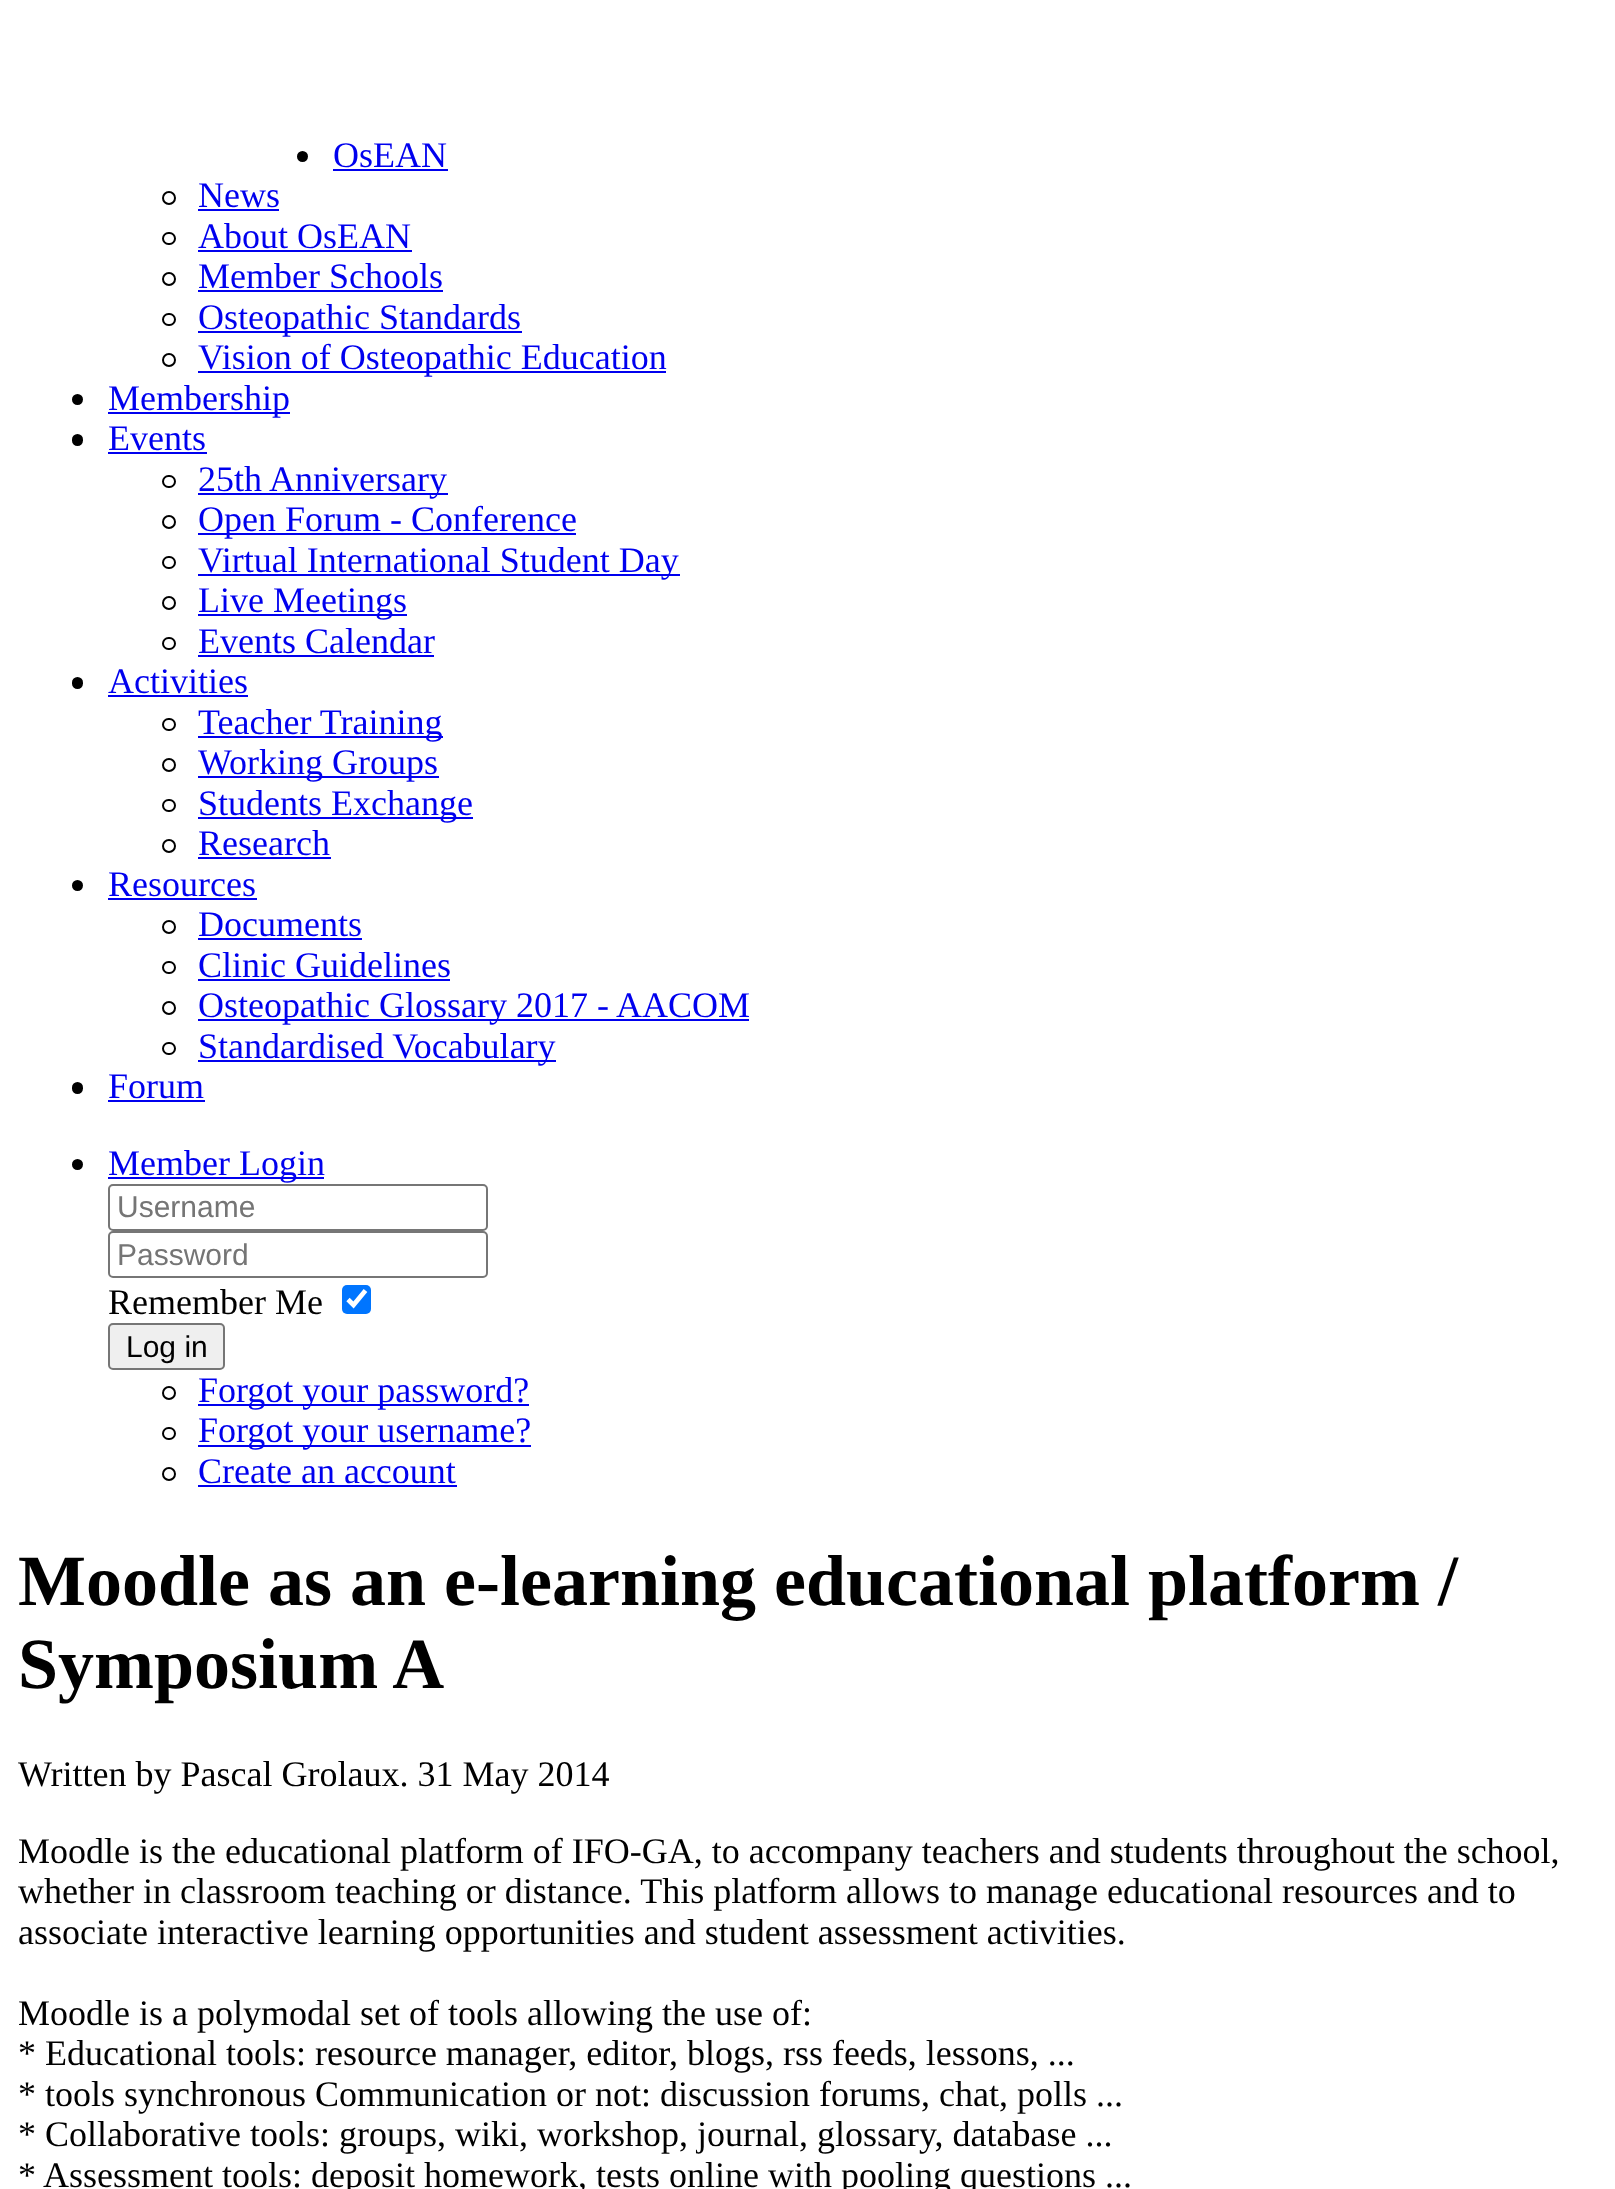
(async () => {
  const canvas = document.querySelector("canvas");
  canvas.width = 1615;
  canvas.height = 2189;
  const ctx = canvas.getContext("2d");
  ctx.miterLimit = 4;
  ctx.fontKerning = "normal";
  let path;

  ctx.fillStyle = "#ffffff";
  ctx.fillRect(0, 0, 1615, 2189);
  ctx.fillStyle = "#000000";
  ctx.beginPath();
  ctx.arc(302.5, 156.5, 5.5, 0, Math.PI * 2);
  ctx.fill();
  ctx.fillStyle = "#0000ee";
  ctx.fillRect(333, 169, 115, 2);
  ctx.beginPath();
  ctx.arc(169, 198, 6, 0, Math.PI * 2);
  ctx.strokeStyle = "#000000";
  ctx.lineWidth = 2;
  ctx.stroke();
  ctx.fillRect(198, 209, 81, 2);
  ctx.beginPath();
  ctx.roundRect(163, 233, 12, 11, 5.5);
  ctx.stroke();
  ctx.fillRect(198, 250, 214, 2);
  ctx.beginPath();
  ctx.arc(169, 279, 6, 0, Math.PI * 2);
  ctx.stroke();
  ctx.fillRect(198, 290, 245, 2);
  ctx.beginPath();
  ctx.roundRect(163, 314, 12, 11, 5.5);
  ctx.stroke();
  ctx.fillRect(198, 331, 324, 2);
  ctx.beginPath();
  ctx.arc(169, 360, 6, 0, Math.PI * 2);
  ctx.stroke();
  ctx.fillRect(198, 371, 468, 2);
  ctx.fillStyle = "#000000";
  ctx.beginPath();
  ctx.arc(77.5, 399.5, 5.5, 0, Math.PI * 2);
  ctx.fill();
  ctx.fillStyle = "#0000ee";
  ctx.fillRect(108, 412, 182, 2);
  ctx.fillStyle = "#000000";
  ctx.beginPath();
  ctx.roundRect(72, 434, 11, 12, 5.5);
  ctx.fill();
  ctx.fillStyle = "#0000ee";
  ctx.fillRect(108, 452, 99, 2);
  ctx.beginPath();
  ctx.roundRect(163, 476, 12, 11, 5.5);
  ctx.stroke();
  ctx.fillRect(198, 493, 250, 2);
  ctx.beginPath();
  ctx.arc(169, 522, 6, 0, Math.PI * 2);
  ctx.stroke();
  ctx.fillRect(198, 533, 378, 2);
  ctx.beginPath();
  ctx.roundRect(163, 557, 12, 11, 5.5);
  ctx.stroke();
  ctx.fillRect(198, 574, 482, 2);
  ctx.beginPath();
  ctx.arc(169, 603, 6, 0, Math.PI * 2);
  ctx.stroke();
  ctx.fillRect(198, 614, 209, 2);
  ctx.beginPath();
  ctx.roundRect(163, 638, 12, 11, 5.5);
  ctx.stroke();
  ctx.fillRect(198, 655, 236, 2);
  ctx.fillStyle = "#000000";
  ctx.beginPath();
  ctx.roundRect(72, 677, 11, 12, 5.5);
  ctx.fill();
  ctx.fillStyle = "#0000ee";
  ctx.fillRect(108, 695, 140, 2);
  ctx.beginPath();
  ctx.roundRect(163, 719, 12, 11, 5.5);
  ctx.stroke();
  ctx.fillRect(198, 736, 245, 2);
  ctx.beginPath();
  ctx.arc(169, 765, 6, 0, Math.PI * 2);
  ctx.stroke();
  ctx.fillRect(198, 776, 241, 2);
  ctx.beginPath();
  ctx.roundRect(163, 800, 12, 11, 5.5);
  ctx.stroke();
  ctx.fillRect(198, 817, 275, 2);
  ctx.beginPath();
  ctx.arc(169, 846, 6, 0, Math.PI * 2);
  ctx.stroke();
  ctx.fillRect(198, 857, 133, 2);
  ctx.fillStyle = "#000000";
  ctx.beginPath();
  ctx.arc(77.5, 885.5, 5.5, 0, Math.PI * 2);
  ctx.fill();
  ctx.fillStyle = "#0000ee";
  ctx.fillRect(108, 898, 149, 2);
  ctx.beginPath();
  ctx.arc(169, 927, 6, 0, Math.PI * 2);
  ctx.stroke();
  ctx.fillRect(198, 938, 164, 2);
  ctx.beginPath();
  ctx.roundRect(163, 962, 12, 11, 5.5);
  ctx.stroke();
  ctx.fillRect(198, 979, 252, 2);
  ctx.beginPath();
  ctx.arc(169, 1008, 6, 0, Math.PI * 2);
  ctx.stroke();
  ctx.fillRect(198, 1019, 551, 2);
  ctx.beginPath();
  ctx.roundRect(163, 1043, 12, 11, 5.5);
  ctx.stroke();
  ctx.fillRect(198, 1060, 358, 2);
  ctx.fillStyle = "#000000";
  ctx.beginPath();
  ctx.roundRect(72, 1082, 11, 12, 5.5);
  ctx.fill();
  ctx.fillStyle = "#0000ee";
  ctx.fillRect(108, 1100, 97, 2);
  ctx.fillStyle = "#000000";
  ctx.beginPath();
  ctx.arc(77.5, 1164.5, 5.5, 0, Math.PI * 2);
  ctx.fill();
  ctx.fillStyle = "#0000ee";
  ctx.fillRect(108, 1177, 216, 2);
  ctx.beginPath();
  ctx.roundRect(109, 1185, 378, 45, 4);
  ctx.strokeStyle = "#767676";
  ctx.stroke();
  ctx.beginPath();
  ctx.roundRect(109, 1232, 378, 45, 4);
  ctx.stroke();
  ctx.fillStyle = "#0075ff";
  ctx.beginPath();
  ctx.roundRect(342, 1285, 29, 29, 5);
  ctx.fill();
  path = new Path2D("M348 1299.5L353.5 1305L365.5 1290.5");
  ctx.strokeStyle = "#ffffff";
  ctx.lineWidth = 4.7;
  ctx.stroke(path);
  ctx.fillStyle = "#efefef";
  ctx.beginPath();
  ctx.roundRect(109, 1324, 115, 45, 4);
  ctx.fill();
  ctx.strokeStyle = "#767676";
  ctx.lineWidth = 2;
  ctx.stroke();
  ctx.beginPath();
  ctx.arc(169, 1393, 6, 0, Math.PI * 2);
  ctx.strokeStyle = "#000000";
  ctx.stroke();
  ctx.fillStyle = "#0000ee";
  ctx.fillRect(198, 1404, 331, 2);
  ctx.beginPath();
  ctx.roundRect(163, 1428, 12, 11, 5.5);
  ctx.stroke();
  ctx.fillRect(198, 1445, 333, 2);
  ctx.beginPath();
  ctx.arc(169, 1474, 6, 0, Math.PI * 2);
  ctx.stroke();
  ctx.fillRect(198, 1485, 259, 2);
  ctx.font = "36px Liberation Serif";
  for (const [text, x, y] of [
    ["OsEAN", 333, 167],
    ["News", 198, 207],
    ["About OsEAN", 198, 248],
    ["Member Schools", 198, 288],
    ["Osteopathic Standards", 198, 329],
    ["Vision of Osteopathic Education", 198, 369],
    ["Membership", 108, 410],
    ["Events", 108, 450],
    ["25th Anniversary", 198, 491],
    ["Open Forum - Conference", 198, 531],
    ["Virtual International Student Day", 198, 572],
    ["Live Meetings", 198, 612],
    ["Events Calendar", 198, 653],
    ["Activities", 108, 693],
    ["Teacher Training", 198, 734],
    ["Working Groups", 198, 774],
    ["Students Exchange", 198, 815],
    ["Research", 198, 855],
    ["Resources", 108, 896],
    ["Documents", 198, 936],
    ["Clinic Guidelines", 198, 977],
    ["Osteopathic Glossary 2017 - AACOM", 198, 1017],
    ["Standardised Vocabulary", 198, 1058],
    ["Forum", 108, 1098],
    ["Member Login", 108, 1175],
  ]) {
    ctx.fillText(text, x, y);
  }
  ctx.font = "30px Liberation Sans";
  ctx.fillStyle = "#757575";
  ctx.fillText("Username", 117, 1217);
  ctx.fillText("Password", 117, 1265);
  ctx.font = "36px Liberation Serif";
  ctx.fillStyle = "#000000";
  ctx.fillText("Remember Me", 108, 1314);
  ctx.font = "30px Liberation Sans";
  ctx.fillText("Log in", 126, 1357);
  ctx.font = "36px Liberation Serif";
  ctx.fillStyle = "#0000ee";
  for (const [text, x, y] of [
    ["Forgot your password?", 198, 1402],
    ["Forgot your username?", 198, 1442],
    ["Create an account", 198, 1483],
  ]) {
    ctx.fillText(text, x, y);
  }
  ctx.font = "bold 72px Liberation Serif";
  ctx.fillStyle = "#000000";
  ctx.fillText("Moodle as an e-learning educational platform /", 18, 1605);
  ctx.fillText("Symposium A", 18, 1688);
  ctx.font = "36px Liberation Serif";
  for (const [text, x, y] of [
    ["Written by Pascal Grolaux. 31 May 2014", 18, 1786],
    ["Moodle is the educational platform of IFO-GA, to accompany teachers and students throughout the school,", 18, 1863],
    ["whether in classroom teaching or distance. This platform allows to manage educational resources and to", 18, 1903],
    ["associate interactive learning opportunities and student assessment activities.", 18, 1944],
    ["Moodle is a polymodal set of tools allowing the use of:", 18, 2025],
    ["* Educational tools: resource manager, editor, blogs, rss feeds, lessons, ...", 18, 2065],
    ["* tools synchronous Communication or not: discussion forums, chat, polls ...", 18, 2106],
    ["* Collaborative tools: groups, wiki, workshop, journal, glossary, database ...", 18, 2146],
    ["* Assessment tools: deposit homework, tests online with pooling questions ...", 18, 2187],
  ]) {
    ctx.fillText(text, x, y);
  }
})();
